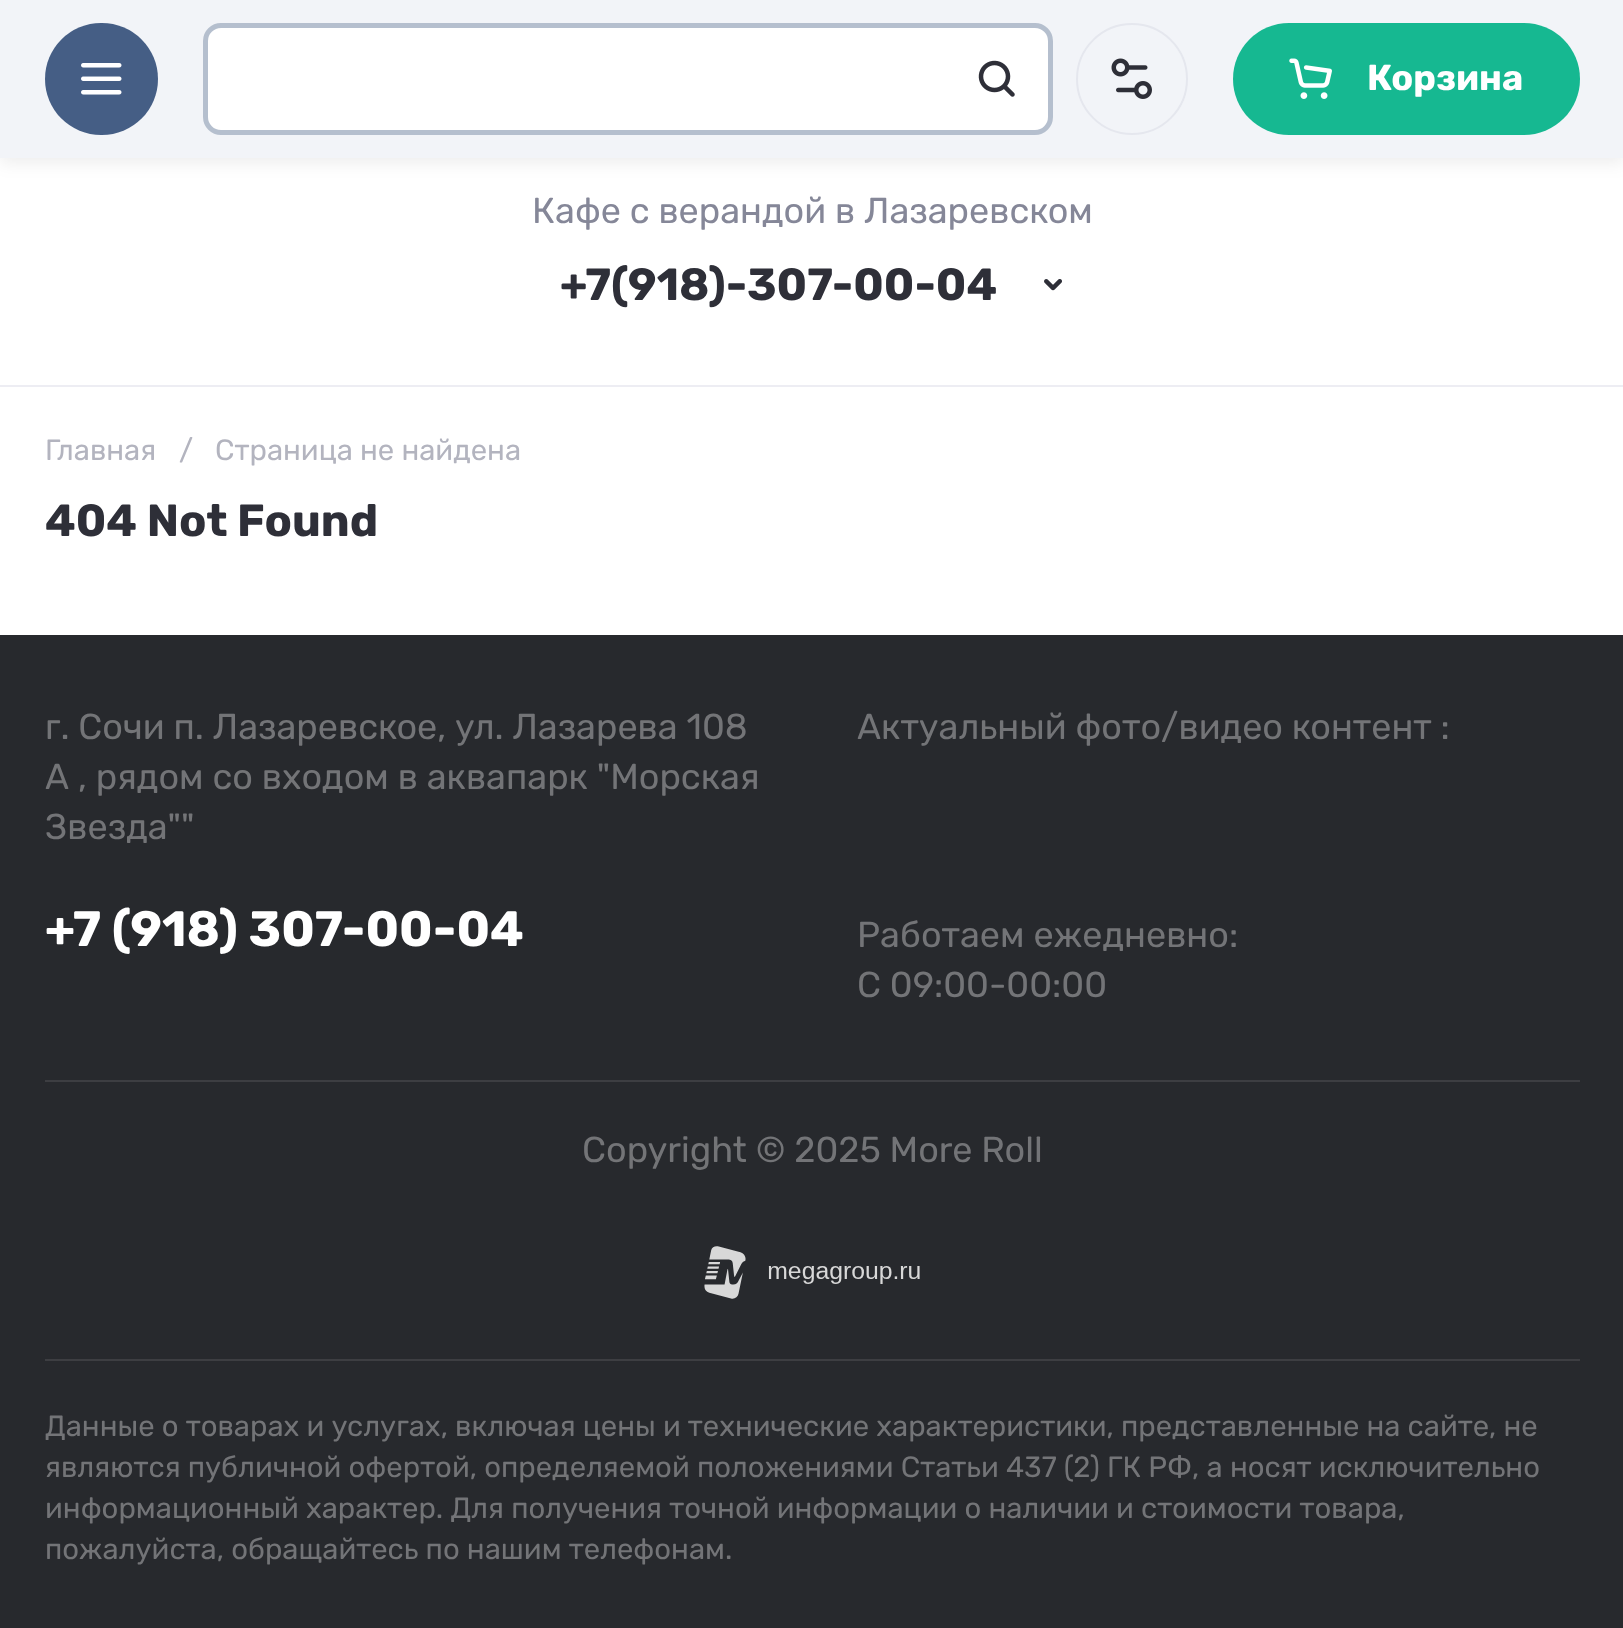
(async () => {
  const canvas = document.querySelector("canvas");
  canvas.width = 1623;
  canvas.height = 1628;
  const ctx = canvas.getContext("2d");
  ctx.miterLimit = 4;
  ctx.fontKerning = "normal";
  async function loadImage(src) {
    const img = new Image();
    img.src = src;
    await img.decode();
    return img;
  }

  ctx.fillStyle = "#ffffff";
  ctx.fillRect(0, 0, 1623, 1628);
  ctx.fillStyle = "rgba(0, 0, 0, 0.08)";
  ctx.filter = "blur(9px)";
  ctx.beginPath();
  ctx.rect(0, 5, 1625, 157);
  ctx.fill();
  ctx.filter = "none";
  ctx.fillStyle = "#f2f4f8";
  ctx.fillRect(0, 0, 1623, 158);
  ctx.fillStyle = "#455e85";
  ctx.beginPath();
  ctx.roundRect(45, 23, 113, 112, 56);
  ctx.fill();
  ctx.drawImage(await loadImage("img/1.png"), 81, 63, 41, 32);
  ctx.fillStyle = "#ffffff";
  ctx.beginPath();
  ctx.roundRect(203, 23, 850, 112, 18);
  ctx.fill();
  ctx.beginPath();
  ctx.roundRect(205.5, 25.5, 845, 107, 15.5);
  ctx.strokeStyle = "rgba(69, 94, 133, 0.4)";
  ctx.lineWidth = 5;
  ctx.stroke();
  ctx.drawImage(await loadImage("img/2.png"), 978, 60, 37, 37);
  ctx.beginPath();
  ctx.arc(1132, 79, 55, 0, Math.PI * 2);
  ctx.strokeStyle = "#e5e7ee";
  ctx.lineWidth = 2;
  ctx.stroke();
  ctx.drawImage(await loadImage("img/3.png"), 1111, 58, 41, 41);
  ctx.fillStyle = "#16b891";
  ctx.beginPath();
  ctx.roundRect(1233, 23, 347, 112, 56);
  ctx.fill();
  ctx.drawImage(await loadImage("img/4.png"), 1289, 58, 43, 41);
  ctx.fillStyle = "#ededf3";
  ctx.fillRect(0, 385, 1623, 2);
  ctx.drawImage(await loadImage("img/5.png"), 1044, 279, 18, 12);
  for (const [x, y, w, h, color] of [
    [0, 635, 1623, 993, "#27292d"],
    [45, 1080, 1535, 2, "#3d3e42"],
    [45, 1359, 1535, 2, "#3d3e42"],
  ]) {
    ctx.fillStyle = color;
    ctx.fillRect(x, y, w, h);
  }
  ctx.drawImage(await loadImage("img/6.png"), 704, 1246, 216, 53);
  ctx.font = "bold 36px Rubik";
  ctx.fillStyle = "#ffffff";
  ctx.fillText("Корзина", 1367, 90);
  ctx.font = "36px Rubik";
  ctx.fillStyle = "#858798";
  ctx.fillText("Кафе с верандой в Лазаревском", 532, 223);
  ctx.font = "bold 45px Rubik";
  ctx.fillStyle = "#2e2f38";
  ctx.fillText("+7(918)-307-00-04", 560, 300);
  ctx.font = "29.25px Rubik";
  ctx.fillStyle = "#b3b4bf";
  for (const [text, x, y] of [
    ["Главная", 45, 460],
    ["/", 179, 460],
    ["Страница не найдена", 215, 460],
  ]) {
    ctx.fillText(text, x, y);
  }
  ctx.font = "bold 45px Rubik";
  ctx.fillStyle = "#2e2f38";
  ctx.fillText("404 Not Found", 45, 536);
  ctx.font = "36px Rubik";
  ctx.fillStyle = "#737477";
  for (const [text, x, y] of [
    ["г. Сочи п. Лазаревское, ул. Лазарева 108", 45, 739],
    ["А , рядом со входом в аквапарк \"Морская", 45, 789],
    ["Звезда\"\"", 45, 839],
  ]) {
    ctx.fillText(text, x, y);
  }
  ctx.font = "bold 49.5px Rubik";
  ctx.fillStyle = "#ffffff";
  ctx.fillText("+7 (918) 307-00-04", 45, 946);
  ctx.font = "36px Rubik";
  ctx.fillStyle = "#737477";
  for (const [text, x, y] of [
    ["Актуальный фото/видео контент :", 857, 739],
    ["Работаем ежедневно:", 857, 947],
    ["С 09:00-00:00", 857, 997],
    ["Copyright © 2025 More Roll", 582, 1162],
  ]) {
    ctx.fillText(text, x, y);
  }
  ctx.font = "29.25px Rubik";
  for (const [text, x, y] of [
    ["Данные о товарах и услугах, включая цены и технические характеристики, представленные на сайте, не", 45, 1436],
    ["являются публичной офертой, определяемой положениями Статьи 437 (2) ГК РФ, а носят исключительно", 45, 1477],
    ["информационный характер. Для получения точной информации о наличии и стоимости товара,", 45, 1518],
    ["пожалуйста, обращайтесь по нашим телефонам.", 45, 1559],
  ]) {
    ctx.fillText(text, x, y);
  }
})();
